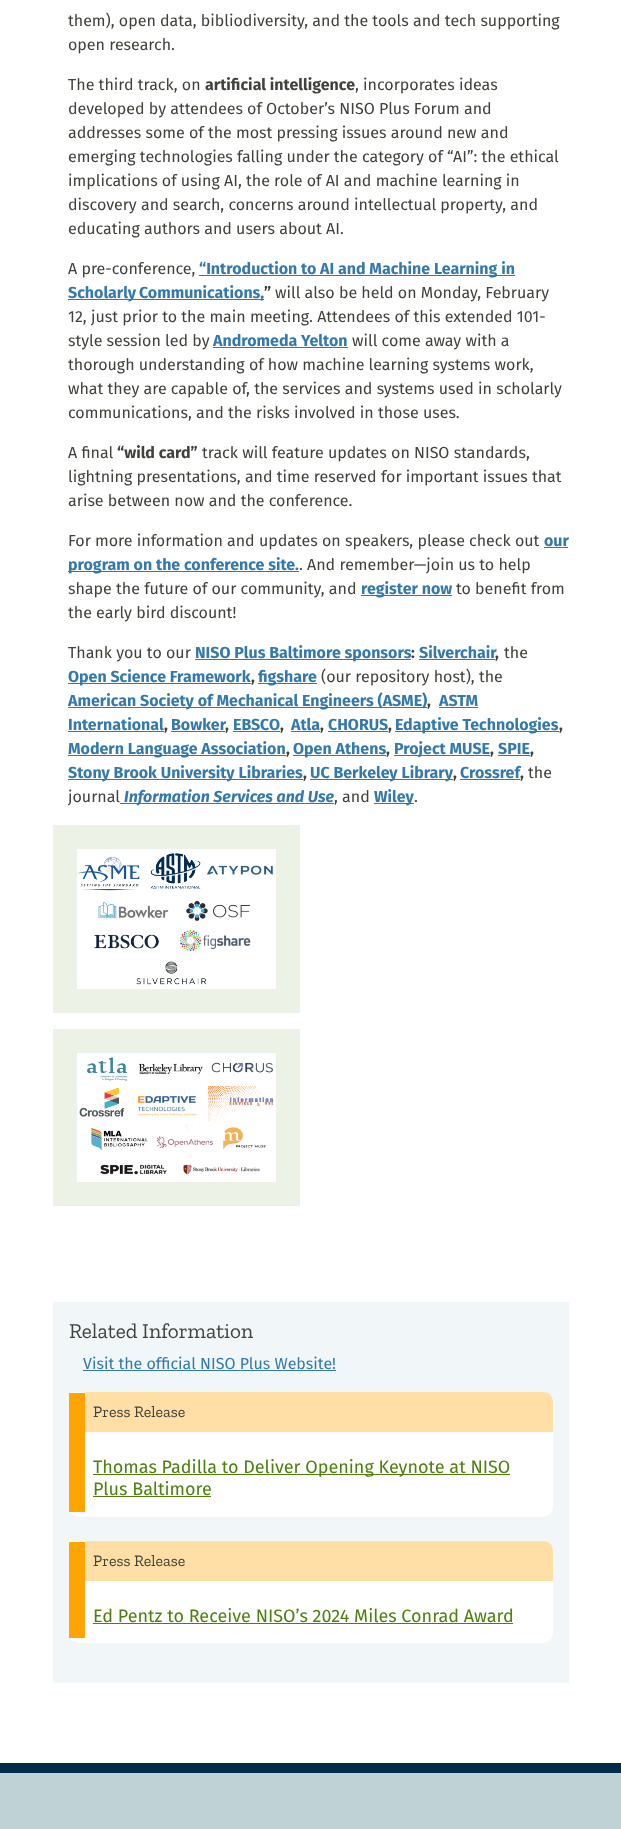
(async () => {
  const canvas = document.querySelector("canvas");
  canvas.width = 621;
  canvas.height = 1829;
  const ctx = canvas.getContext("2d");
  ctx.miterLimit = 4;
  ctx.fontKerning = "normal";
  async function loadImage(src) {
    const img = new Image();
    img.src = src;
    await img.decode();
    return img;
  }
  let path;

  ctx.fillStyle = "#ffffff";
  ctx.fillRect(0, 0, 621, 1829);
  for (const [x, y, w, h, color] of [
    [199, 275, 316, 1, "#3379ab"],
    [68, 299, 196, 1, "#3379ab"],
    [213, 347, 135, 1, "#3379ab"],
    [544, 547, 24, 1, "#3379ab"],
    [68, 571, 231, 1, "#3379ab"],
    [361, 595, 91, 1, "#3379ab"],
    [195, 659, 216, 1, "#3379ab"],
    [419, 659, 76, 1, "#3379ab"],
    [68, 683, 183, 1, "#3379ab"],
    [258, 683, 59, 1, "#3379ab"],
    [68, 707, 359, 1, "#3379ab"],
    [439, 707, 39, 1, "#3379ab"],
    [68, 731, 96, 1, "#3379ab"],
    [171, 731, 54, 1, "#3379ab"],
    [233, 731, 47, 1, "#3379ab"],
    [291, 731, 29, 1, "#3379ab"],
    [328, 731, 60, 1, "#3379ab"],
    [395, 731, 164, 1, "#3379ab"],
    [68, 755, 218, 1, "#3379ab"],
    [293, 755, 93, 1, "#3379ab"],
    [394, 755, 96, 1, "#3379ab"],
    [498, 755, 32, 1, "#3379ab"],
    [68, 779, 235, 1, "#3379ab"],
    [310, 779, 143, 1, "#3379ab"],
    [460, 779, 60, 1, "#3379ab"],
    [120, 803, 214, 1, "#3379ab"],
    [374, 803, 40, 1, "#3379ab"],
    [53, 825, 247, 188, "#edf2e6"],
  ]) {
    ctx.fillStyle = color;
    ctx.fillRect(x, y, w, h);
  }
  ctx.drawImage(await loadImage("img/1.png"), 77, 849, 199, 140);
  ctx.fillRect(53, 1029, 247, 177);
  ctx.drawImage(await loadImage("img/2.png"), 77, 1053, 199, 129);
  ctx.fillStyle = "#f1f6f9";
  ctx.fillRect(53, 1302, 516, 381);
  ctx.fillStyle = "#3379ab";
  ctx.fillRect(83, 1370, 253, 1);
  ctx.fillStyle = "#ffffff";
  ctx.beginPath();
  ctx.roundRect(69, 1392, 484, 125, [2, 10, 10, 10]);
  ctx.fill();
  ctx.fillStyle = "#ffa400";
  ctx.fillRect(69, 1393, 16, 119);
  ctx.fillStyle = "#ffdfa6";
  path = new Path2D("M85 1392V1432H553V1402C553 1396 549 1392 543 1392Z");
  ctx.fill(path);
  ctx.fillStyle = "#4e800d";
  ctx.fillRect(93, 1474, 417, 1);
  ctx.fillRect(93, 1496, 118, 1);
  ctx.fillStyle = "#ffffff";
  ctx.beginPath();
  ctx.roundRect(69, 1541, 484, 102, [2, 10, 10, 10]);
  ctx.fill();
  ctx.fillStyle = "#ffa400";
  ctx.fillRect(69, 1542, 16, 96);
  ctx.fillStyle = "#ffdfa6";
  path = new Path2D("M85 1541V1581H553V1551C553 1545 549 1541 543 1541Z");
  ctx.fill(path);
  for (const [x, y, w, h, color] of [
    [93, 1623, 420, 1, "#4e800d"],
    [0, 1773, 621, 56, "#bfd3d6"],
    [0, 1763, 621, 10, "#022c48"],
  ]) {
    ctx.fillStyle = color;
    ctx.fillRect(x, y, w, h);
  }
  ctx.font = "16px Fira Sans";
  ctx.fillStyle = "#42423c";
  for (const [text, x, y] of [
    ["them), open data, bibliodiversity, and the tools and tech supporting", 68, 26],
    ["open research.", 68, 50],
    ["The third track, on", 68, 90],
  ]) {
    ctx.fillText(text, x, y);
  }
  ctx.font = "bold 16px Fira Sans";
  ctx.fillText("artificial intelligence", 205, 90);
  ctx.font = "16px Fira Sans";
  for (const [text, x, y] of [
    [", incorporates ideas", 355, 90],
    ["developed by attendees of October’s NISO Plus Forum and", 68, 114],
    ["addresses some of the most pressing issues around new and", 68, 138],
    ["emerging technologies falling under the category of “AI”: the ethical", 68, 162],
    ["implications of using AI, the role of AI and machine learning in", 68, 186],
    ["discovery and search, concerns around intellectual property, and", 68, 210],
    ["educating authors and users about AI.", 68, 234],
    ["A pre-conference,", 68, 274],
  ]) {
    ctx.fillText(text, x, y);
  }
  ctx.font = "bold 16px Fira Sans";
  ctx.fillStyle = "#3379ab";
  ctx.fillText("“Introduction to AI and Machine Learning in", 199, 274);
  ctx.wordSpacing = "-1px";
  ctx.fillText("Scholarly Communications,", 68, 298);
  ctx.wordSpacing = "0px";
  ctx.fillStyle = "#42423c";
  ctx.fillText("”", 264, 298);
  ctx.font = "16px Fira Sans";
  for (const [text, x, y] of [
    ["will also be held on Monday, February", 275, 298],
    ["12, just prior to the main meeting. Attendees of this extended 101-", 68, 322],
    ["style session led by", 68, 346],
  ]) {
    ctx.fillText(text, x, y);
  }
  ctx.font = "bold 16px Fira Sans";
  ctx.fillStyle = "#3379ab";
  ctx.fillText("Andromeda Yelton", 213, 346);
  ctx.font = "16px Fira Sans";
  ctx.fillStyle = "#42423c";
  for (const [text, x, y] of [
    ["will come away with a", 352, 346],
    ["thorough understanding of how machine learning systems work,", 68, 370],
    ["what they are capable of, the services and systems used in scholarly", 68, 394],
    ["communications, and the risks involved in those uses.", 68, 418],
    ["A final", 68, 458],
  ]) {
    ctx.fillText(text, x, y);
  }
  ctx.font = "bold 16px Fira Sans";
  ctx.fillText("“wild card”", 117, 458);
  ctx.font = "16px Fira Sans";
  for (const [text, x, y] of [
    ["track will feature updates on NISO standards,", 202, 458],
    ["lightning presentations, and time reserved for important issues that", 68, 482],
    ["arise between now and the conference.", 68, 506],
    ["For more information and updates on speakers, please check out", 68, 546],
  ]) {
    ctx.fillText(text, x, y);
  }
  ctx.font = "bold 16px Fira Sans";
  ctx.fillStyle = "#3379ab";
  ctx.fillText("our", 544, 546);
  ctx.fillText("program on the conference site.", 68, 570);
  ctx.font = "16px Fira Sans";
  ctx.fillStyle = "#42423c";
  ctx.fillText(". And remember—join us to help", 299, 570);
  ctx.fillText("shape the future of our community, and", 68, 594);
  ctx.font = "bold 16px Fira Sans";
  ctx.fillStyle = "#3379ab";
  ctx.fillText("register now", 361, 594);
  ctx.font = "16px Fira Sans";
  ctx.fillStyle = "#42423c";
  for (const [text, x, y] of [
    ["to benefit from", 456, 594],
    ["the early bird discount!", 68, 618],
    ["Thank you to our", 68, 658],
  ]) {
    ctx.fillText(text, x, y);
  }
  ctx.font = "bold 16px Fira Sans";
  ctx.fillStyle = "#3379ab";
  ctx.fillText("NISO Plus Baltimore sponsors", 195, 658);
  ctx.fillStyle = "#42423c";
  ctx.fillText(":", 411, 658);
  ctx.fillStyle = "#3379ab";
  ctx.fillText("Silverchair", 419, 658);
  ctx.font = "16px Fira Sans";
  ctx.fillStyle = "#42423c";
  ctx.fillText("the", 504, 658);
  ctx.font = "bold 16px Fira Sans";
  ctx.fillText(",", 495, 658);
  ctx.fillStyle = "#3379ab";
  ctx.fillText("Open Science Framework", 68, 682);
  ctx.fillStyle = "#42423c";
  ctx.fillText(",", 251, 682);
  ctx.fillStyle = "#3379ab";
  ctx.fillText("figshare", 258, 682);
  ctx.font = "16px Fira Sans";
  ctx.fillStyle = "#42423c";
  ctx.fillText("(our repository host), the", 321, 682);
  ctx.font = "bold 16px Fira Sans";
  ctx.fillStyle = "#3379ab";
  ctx.fillText("American Society of Mechanical Engineers (ASME)", 68, 706);
  ctx.fillStyle = "#42423c";
  ctx.fillText(",", 427, 706);
  ctx.fillStyle = "#3379ab";
  ctx.fillText("ASTM", 439, 706);
  ctx.fillText("International", 68, 730);
  ctx.fillStyle = "#42423c";
  ctx.fillText(",", 164, 730);
  ctx.fillStyle = "#3379ab";
  for (const [text, x, y] of [
    ["Bowker", 171, 730],
    ["EBSCO", 233, 730],
    ["Atla", 291, 730],
    ["CHORUS", 328, 730],
    ["Edaptive Technologies", 395, 730],
  ]) {
    ctx.fillText(text, x, y);
  }
  ctx.fillStyle = "#42423c";
  for (const [text, x, y] of [
    [",", 225, 730],
    [",", 280, 730],
    [",", 320, 730],
    [",", 388, 730],
    [",", 559, 730],
  ]) {
    ctx.fillText(text, x, y);
  }
  ctx.fillStyle = "#3379ab";
  ctx.fillText("Modern Language Association", 68, 754);
  ctx.fillStyle = "#42423c";
  ctx.fillText(",", 286, 754);
  ctx.fillStyle = "#3379ab";
  ctx.fillText("Open Athens", 293, 754);
  ctx.fillStyle = "#42423c";
  ctx.fillText(",", 386, 754);
  ctx.fillStyle = "#3379ab";
  ctx.fillText("Project MUSE", 394, 754);
  ctx.fillStyle = "#42423c";
  ctx.fillText(",", 490, 754);
  ctx.fillStyle = "#3379ab";
  ctx.fillText("SPIE", 498, 754);
  ctx.fillStyle = "#42423c";
  ctx.fillText(",", 530, 754);
  ctx.fillStyle = "#3379ab";
  ctx.fillText("Stony Brook University Libraries", 68, 778);
  ctx.fillStyle = "#42423c";
  ctx.fillText(",", 303, 778);
  ctx.fillStyle = "#3379ab";
  ctx.fillText("UC Berkeley Library", 310, 778);
  ctx.fillStyle = "#42423c";
  ctx.fillText(",", 453, 778);
  ctx.fillStyle = "#3379ab";
  ctx.fillText("Crossref", 460, 778);
  ctx.font = "16px Fira Sans";
  ctx.fillStyle = "#42423c";
  ctx.fillText("the", 528, 778);
  ctx.font = "bold 16px Fira Sans";
  ctx.fillText(",", 520, 778);
  ctx.font = "16px Fira Sans";
  ctx.fillText("journal", 68, 802);
  ctx.font = "italic bold 16px Fira Sans";
  ctx.fillStyle = "#3379ab";
  ctx.fillText("Information Services and Use", 124, 802);
  ctx.font = "16px Fira Sans";
  ctx.fillStyle = "#42423c";
  ctx.fillText(", and", 334, 802);
  ctx.font = "bold 16px Fira Sans";
  ctx.fillStyle = "#3379ab";
  ctx.fillText("Wiley", 374, 802);
  ctx.font = "16px Fira Sans";
  ctx.fillStyle = "#42423c";
  ctx.fillText(".", 414, 802);
  ctx.font = "21.25px Zilla Slab";
  ctx.fillText("Related Information", 69, 1338);
  ctx.font = "16px Fira Sans";
  ctx.fillStyle = "#3379ab";
  ctx.fillText("Visit the official NISO Plus Website!", 83, 1369);
  ctx.font = "16px Zilla Slab";
  ctx.fillStyle = "#42423c";
  ctx.fillText("Press Release", 93, 1417);
  ctx.font = "18px Fira Sans";
  ctx.fillStyle = "#4e800d";
  ctx.fillText("Thomas Padilla to Deliver Opening Keynote at NISO", 93, 1473);
  ctx.fillText("Plus Baltimore", 93, 1495);
  ctx.font = "16px Zilla Slab";
  ctx.fillStyle = "#42423c";
  ctx.fillText("Press Release", 93, 1566);
  ctx.font = "18px Fira Sans";
  ctx.fillStyle = "#4e800d";
  ctx.fillText("Ed Pentz to Receive NISO’s 2024 Miles Conrad Award", 93, 1622);
})();
